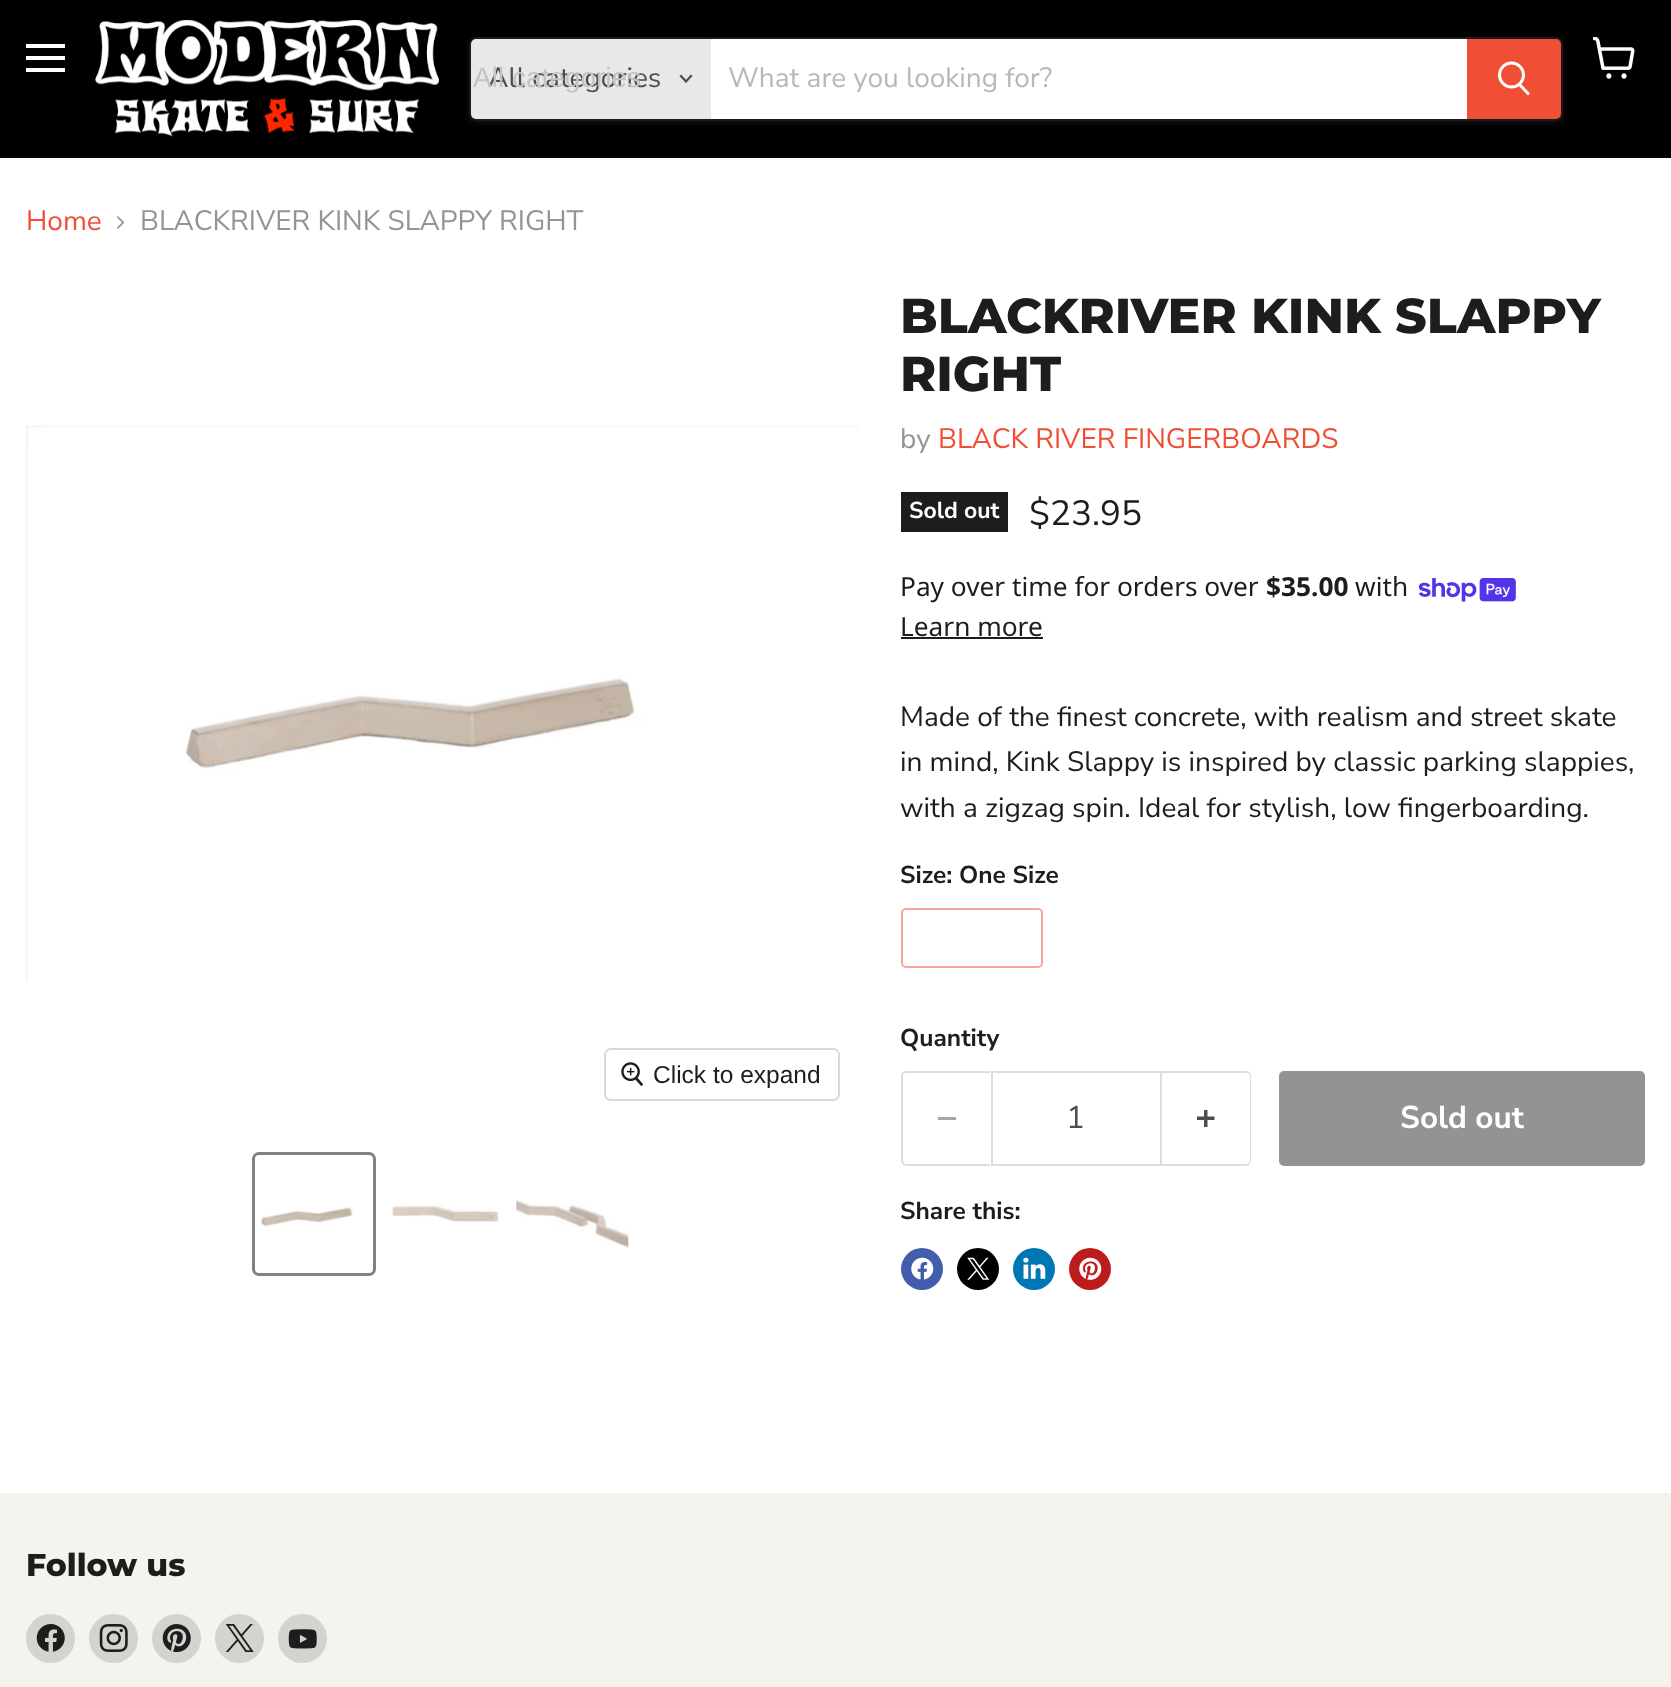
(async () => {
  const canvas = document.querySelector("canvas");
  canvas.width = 1671;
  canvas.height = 1687;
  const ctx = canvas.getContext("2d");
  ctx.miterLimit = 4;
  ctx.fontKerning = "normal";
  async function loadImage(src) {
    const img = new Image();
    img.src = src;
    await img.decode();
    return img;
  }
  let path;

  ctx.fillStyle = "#ffffff";
  ctx.fillRect(0, 0, 1671, 1687);
  for (const [x, y, w, h, color] of [
    [0, 0, 1671, 158, "#000000"],
    [26, 44, 39, 4, "#ffffff"],
    [26, 56, 39, 4, "#ffffff"],
    [26, 68, 39, 4, "#ffffff"],
  ]) {
    ctx.fillStyle = color;
    ctx.fillRect(x, y, w, h);
  }
  ctx.drawImage(await loadImage("img/1.png"), 1593, 37, 42, 42);
  ctx.drawImage(await loadImage("img/2.png"), 95, 20, 344, 117);
  ctx.save();
  path = new Path2D("M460 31H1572V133H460ZM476 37H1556C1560 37 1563 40 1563 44V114C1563 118 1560 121 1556 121H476C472 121 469 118 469 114V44C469 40 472 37 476 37Z");
  ctx.clip(path, "evenodd");
  ctx.fillStyle = "rgba(128, 128, 128, 0.11)";
  ctx.filter = "blur(2.5px)";
  ctx.beginPath();
  ctx.roundRect(469, 40, 1094, 84, 7);
  ctx.fill();
  ctx.filter = "none";
  ctx.restore();
  ctx.beginPath();
  ctx.roundRect(470, 38, 1092, 82, 6);
  ctx.strokeStyle = "rgba(128, 128, 128, 0.2)";
  ctx.lineWidth = 2;
  ctx.stroke();
  ctx.fillStyle = "#e8e8e8";
  ctx.beginPath();
  ctx.roundRect(471, 39, 240, 80, [5, 0, 0, 5]);
  ctx.fill();
  path = new Path2D("M686 81.5L691 76M686 81.5L681 76");
  ctx.strokeStyle = "#4d4d4d";
  ctx.lineWidth = 2.2;
  ctx.lineCap = "square";
  ctx.stroke(path);
  ctx.fillStyle = "#ffffff";
  ctx.fillRect(711, 39, 756, 80);
  ctx.fillStyle = "#f04f36";
  ctx.beginPath();
  ctx.roundRect(1468, 40, 92, 78, [0, 4, 4, 0]);
  ctx.fill();
  ctx.strokeStyle = "#f04f36";
  ctx.lineWidth = 2;
  ctx.stroke();
  path = new Path2D("M1528 93.5L1520 85");
  ctx.strokeStyle = "#ffffff";
  ctx.lineWidth = 3;
  ctx.lineCap = "round";
  ctx.stroke(path);
  ctx.beginPath();
  ctx.arc(1511.5, 75, 12, 0, Math.PI * 2);
  ctx.stroke();
  ctx.drawImage(await loadImage("img/3.png"), 117, 216, 8, 13);
  ctx.drawImage(await loadImage("img/4.png"), 26, 425, 833, 557);
  ctx.beginPath();
  ctx.roundRect(605, 1049, 234, 51, 6);
  ctx.strokeStyle = "#d9d9d9";
  ctx.lineWidth = 2;
  ctx.stroke();
  ctx.fillStyle = "rgba(255, 255, 255, 0.9)";
  ctx.beginPath();
  ctx.roundRect(606, 1050, 232, 49, 5);
  ctx.fill();
  ctx.drawImage(await loadImage("img/5.png"), 621, 1062, 23, 25);
  ctx.beginPath();
  ctx.roundRect(253.5, 1153.5, 121, 121, 5.5);
  ctx.strokeStyle = "#818181";
  ctx.lineWidth = 3;
  ctx.stroke();
  ctx.drawImage(await loadImage("img/6.png"), 260, 1207, 93, 24);
  ctx.drawImage(await loadImage("img/7.png"), 392, 1205, 107, 17);
  ctx.drawImage(await loadImage("img/8.png"), 516, 1199, 113, 49);
  ctx.fillStyle = "#1d1d1d";
  ctx.fillRect(901, 492, 107, 40);
  ctx.drawImage(await loadImage("img/9.png"), 1418, 578, 98, 24);
  ctx.fillRect(901, 637, 142, 2);
  ctx.fillStyle = "#fffaf9";
  ctx.beginPath();
  ctx.roundRect(902, 909, 140, 58, 4);
  ctx.fill();
  ctx.strokeStyle = "#f8a79b";
  ctx.lineWidth = 2;
  ctx.stroke();
  ctx.fillStyle = "#ffffff";
  path = new Path2D("M907 910C905 910 903 912 903 914V962C903 964 905 966 907 966H1037C1039 966 1041 964 1041 962V914C1041 912 1039 910 1037 910Z");
  ctx.fill(path);
  ctx.fillStyle = "#dddddd";
  path = new Path2D("M906 1071H990V1166H906C904 1166 901 1163 901 1160V1076C901 1073 904 1071 906 1071ZM906 1073H990V1164H906C905 1164 903 1162 903 1160V1076C903 1074 905 1073 906 1073Z");
  ctx.fill(path, "evenodd");
  ctx.fillStyle = "#a6a6a6";
  ctx.fillRect(938, 1117, 18, 3);
  ctx.strokeStyle = "#dddddd";
  ctx.strokeRect(992, 1072, 169, 93);
  ctx.fillStyle = "#dddddd";
  path = new Path2D("M1162 1071H1246C1249 1071 1251 1073 1251 1076V1160C1251 1163 1249 1166 1246 1166H1162ZM1162 1073H1246C1248 1073 1250 1074 1250 1076V1160C1250 1162 1248 1164 1246 1164H1162Z");
  ctx.fill(path, "evenodd");
  ctx.drawImage(await loadImage("img/10.png"), 1197, 1110, 18, 17);
  ctx.fillStyle = "#939393";
  ctx.beginPath();
  ctx.roundRect(1280, 1072, 364, 93, 4);
  ctx.fill();
  ctx.strokeStyle = "#939393";
  ctx.stroke();
  ctx.fillStyle = "#425dab";
  ctx.beginPath();
  ctx.arc(922, 1269, 21, 0, Math.PI * 2);
  ctx.fill();
  ctx.drawImage(await loadImage("img/11.png"), 911, 1257, 23, 23);
  ctx.fillStyle = "#000000";
  ctx.beginPath();
  ctx.arc(978, 1269, 21, 0, Math.PI * 2);
  ctx.fill();
  ctx.drawImage(await loadImage("img/12.png"), 967, 1257, 23, 23);
  ctx.fillStyle = "#0077b5";
  ctx.beginPath();
  ctx.arc(1034, 1269, 21, 0, Math.PI * 2);
  ctx.fill();
  ctx.drawImage(await loadImage("img/13.png"), 1023, 1257, 23, 22);
  ctx.fillStyle = "#bd1c1c";
  ctx.beginPath();
  ctx.arc(1090, 1269, 21, 0, Math.PI * 2);
  ctx.fill();
  ctx.drawImage(await loadImage("img/14.png"), 1079, 1257, 23, 23);
  ctx.fillStyle = "#f5f3ed";
  ctx.fillRect(0, 1493, 1671, 194);
  ctx.fillStyle = "#d5d3ce";
  ctx.beginPath();
  ctx.arc(50.5, 1638.5, 24.5, 0, Math.PI * 2);
  ctx.fill();
  ctx.drawImage(await loadImage("img/15.png"), 36, 1624, 29, 28);
  ctx.beginPath();
  ctx.arc(113.5, 1638.5, 24.5, 0, Math.PI * 2);
  ctx.fill();
  ctx.drawImage(await loadImage("img/16.png"), 99, 1624, 29, 28);
  ctx.beginPath();
  ctx.arc(176.5, 1638.5, 24.5, 0, Math.PI * 2);
  ctx.fill();
  ctx.drawImage(await loadImage("img/17.png"), 162, 1624, 29, 29);
  ctx.beginPath();
  ctx.arc(239.5, 1638.5, 24.5, 0, Math.PI * 2);
  ctx.fill();
  ctx.drawImage(await loadImage("img/18.png"), 225, 1624, 29, 28);
  ctx.beginPath();
  ctx.arc(302.5, 1638.5, 24.5, 0, Math.PI * 2);
  ctx.fill();
  ctx.drawImage(await loadImage("img/19.png"), 288, 1629, 29, 20);
  ctx.font = "28px Nunito Sans";
  ctx.fillStyle = "#4d4d4d";
  ctx.fillText("All categories", 488, 87);
  ctx.font = "28px Liberation Sans";
  ctx.fillStyle = "#c3c3c3";
  ctx.fillText("All categories", 473, 87);
  ctx.font = "28px Nunito Sans";
  ctx.fillStyle = "#b8b8b8";
  ctx.fillText("What are you looking for?", 728, 87);
  ctx.fillStyle = "#f04f36";
  ctx.fillText("Home", 26, 230);
  ctx.fillStyle = "#949494";
  ctx.fillText("BLACKRIVER KINK SLAPPY RIGHT", 140, 230);
  ctx.font = "24.5px Liberation Sans";
  ctx.fillStyle = "#1d1d1d";
  ctx.fillText("Click to expand", 653, 1083);
  ctx.font = "800 49px Montserrat";
  ctx.fillText("BLACKRIVER KINK SLAPPY", 900, 333);
  ctx.fillText("RIGHT", 900, 391);
  ctx.font = "28px Nunito Sans";
  ctx.fillStyle = "#949494";
  ctx.fillText("by", 900, 448);
  ctx.fillStyle = "#f04f36";
  ctx.fillText("BLACK RIVER FINGERBOARDS", 938, 448);
  ctx.font = "bold 23px Nunito Sans";
  ctx.fillStyle = "#ffffff";
  ctx.fillText("Sold out", 909, 518);
  ctx.font = "35px Nunito Sans";
  ctx.fillStyle = "#1d1d1d";
  ctx.fillText("$23.95", 1029, 525);
  ctx.font = "26.25px Noto Sans";
  ctx.fillText("Pay over time for orders over", 900, 596);
  ctx.font = "bold 26.25px Noto Sans";
  ctx.fillText("$35.00", 1266, 596);
  ctx.font = "26.25px Noto Sans";
  ctx.fillText("with", 1355, 596);
  ctx.fillText("Learn more", 900, 636);
  ctx.font = "28px Nunito Sans";
  for (const [text, x, y] of [
    ["Made of the finest concrete, with realism and street skate", 900, 726],
    ["in mind, Kink Slappy is inspired by classic parking slappies,", 900, 771],
    ["with a zigzag spin. Ideal for stylish, low fingerboarding.", 900, 817],
  ]) {
    ctx.fillText(text, x, y);
  }
  ctx.font = "bold 24.5px Nunito Sans";
  ctx.fillText("Size: One Size", 900, 883);
  ctx.fillText("Quantity", 900, 1046);
  ctx.font = "31.5px Nunito Sans";
  ctx.fillStyle = "#4d4d4d";
  ctx.fillText("1", 1066, 1128);
  ctx.font = "bold 31.5px Nunito Sans";
  ctx.fillStyle = "#ffffff";
  ctx.fillText("Sold out", 1400, 1128);
  ctx.font = "bold 24.5px Nunito Sans";
  ctx.fillStyle = "#1d1d1d";
  ctx.fillText("Share this:", 900, 1219);
  ctx.font = "800 31.5px Montserrat";
  ctx.fillText("Follow us", 26, 1576);
})();
